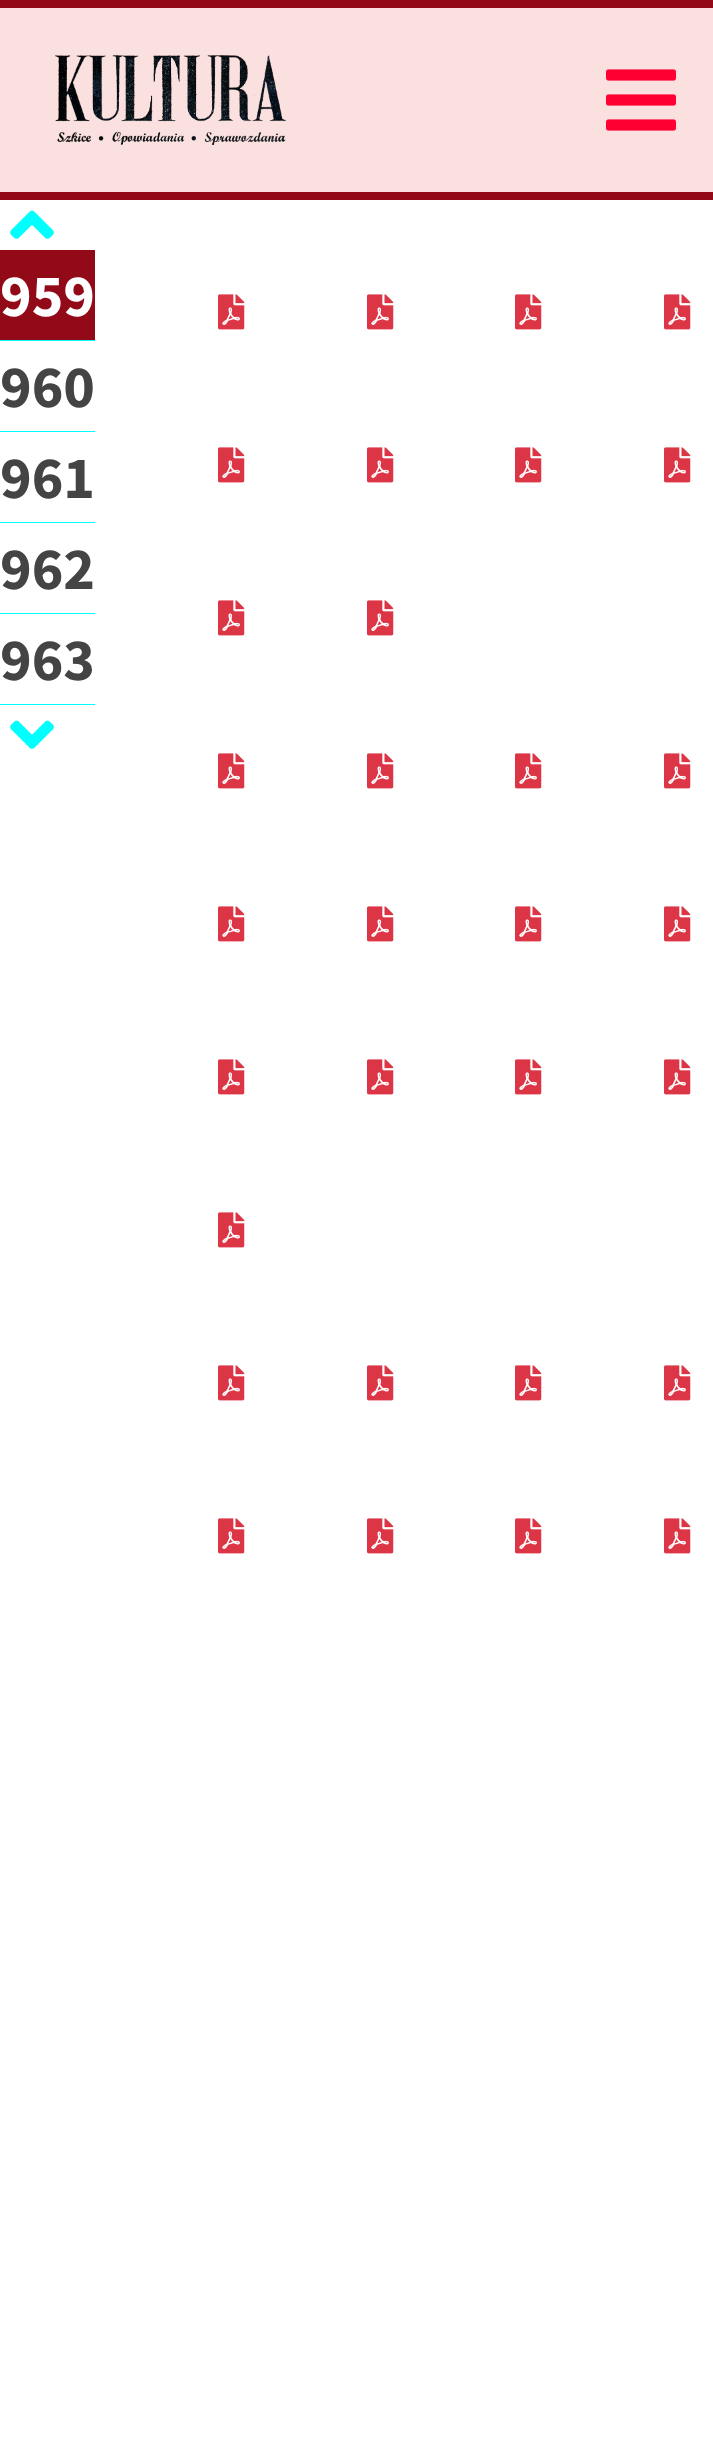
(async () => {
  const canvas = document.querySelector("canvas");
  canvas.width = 713;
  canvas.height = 2459;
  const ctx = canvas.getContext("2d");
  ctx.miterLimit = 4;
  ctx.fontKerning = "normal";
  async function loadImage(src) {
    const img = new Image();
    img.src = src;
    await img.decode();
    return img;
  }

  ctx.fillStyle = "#ffffff";
  ctx.fillRect(0, 0, 713, 2459);
  for (const [x, y, w, h, color] of [
    [0, 8, 713, 184, "#fae1df"],
    [0, 0, 713, 8, "#920918"],
    [0, 192, 713, 8, "#920918"],
  ]) {
    ctx.fillStyle = color;
    ctx.fillRect(x, y, w, h);
  }
  ctx.drawImage(await loadImage("img/1.png"), 55, 55, 231, 90);
  ctx.drawImage(await loadImage("img/2.png"), 606, 69, 70, 62);
  ctx.drawImage(await loadImage("img/3.png"), 10, 210, 44, 29);
  for (const [x, y, w, h, color] of [
    [0, 340, 95, 1, "#00ffff"],
    [0, 250, 95, 90, "#920918"],
    [0, 431, 95, 1, "#00ffff"],
    [0, 522, 95, 1, "#00ffff"],
    [0, 613, 95, 1, "#00ffff"],
    [0, 704, 95, 1, "#00ffff"],
  ]) {
    ctx.fillStyle = color;
    ctx.fillRect(x, y, w, h);
  }
  ctx.drawImage(await loadImage("img/4.png"), 10, 720, 44, 29);
  ctx.drawImage(await loadImage("img/5.png"), 218, 294, 27, 36);
  ctx.drawImage(await loadImage("img/5.png"), 367, 294, 27, 36);
  ctx.drawImage(await loadImage("img/5.png"), 515, 294, 27, 36);
  ctx.drawImage(await loadImage("img/5.png"), 664, 294, 27, 36);
  ctx.drawImage(await loadImage("img/5.png"), 218, 447, 27, 36);
  ctx.drawImage(await loadImage("img/5.png"), 367, 447, 27, 36);
  ctx.drawImage(await loadImage("img/5.png"), 515, 447, 27, 36);
  ctx.drawImage(await loadImage("img/5.png"), 664, 447, 27, 36);
  ctx.drawImage(await loadImage("img/5.png"), 218, 600, 27, 36);
  ctx.drawImage(await loadImage("img/5.png"), 367, 600, 27, 36);
  ctx.drawImage(await loadImage("img/5.png"), 218, 753, 27, 36);
  ctx.drawImage(await loadImage("img/5.png"), 367, 753, 27, 36);
  ctx.drawImage(await loadImage("img/5.png"), 515, 753, 27, 36);
  ctx.drawImage(await loadImage("img/5.png"), 664, 753, 27, 36);
  ctx.drawImage(await loadImage("img/5.png"), 218, 906, 27, 36);
  ctx.drawImage(await loadImage("img/5.png"), 367, 906, 27, 36);
  ctx.drawImage(await loadImage("img/5.png"), 515, 906, 27, 36);
  ctx.drawImage(await loadImage("img/5.png"), 664, 906, 27, 36);
  ctx.drawImage(await loadImage("img/5.png"), 218, 1059, 27, 36);
  ctx.drawImage(await loadImage("img/5.png"), 367, 1059, 27, 36);
  ctx.drawImage(await loadImage("img/5.png"), 515, 1059, 27, 36);
  ctx.drawImage(await loadImage("img/5.png"), 664, 1059, 27, 36);
  ctx.drawImage(await loadImage("img/5.png"), 218, 1212, 27, 36);
  ctx.drawImage(await loadImage("img/5.png"), 218, 1365, 27, 36);
  ctx.drawImage(await loadImage("img/5.png"), 367, 1365, 27, 36);
  ctx.drawImage(await loadImage("img/5.png"), 515, 1365, 27, 36);
  ctx.drawImage(await loadImage("img/5.png"), 664, 1365, 27, 36);
  ctx.drawImage(await loadImage("img/5.png"), 218, 1518, 27, 36);
  ctx.drawImage(await loadImage("img/5.png"), 367, 1518, 27, 36);
  ctx.drawImage(await loadImage("img/5.png"), 515, 1518, 27, 36);
  ctx.drawImage(await loadImage("img/5.png"), 664, 1518, 27, 36);
  ctx.font = "bold 60px Source Sans Pro";
  ctx.fillStyle = "#ffffff";
  ctx.fillText("959", 0, 316);
  ctx.fillStyle = "#444444";
  for (const [text, x, y] of [
    ["960", 0, 407],
    ["961", 0, 498],
    ["962", 0, 589],
    ["963", 0, 680],
  ]) {
    ctx.fillText(text, x, y);
  }
})();
